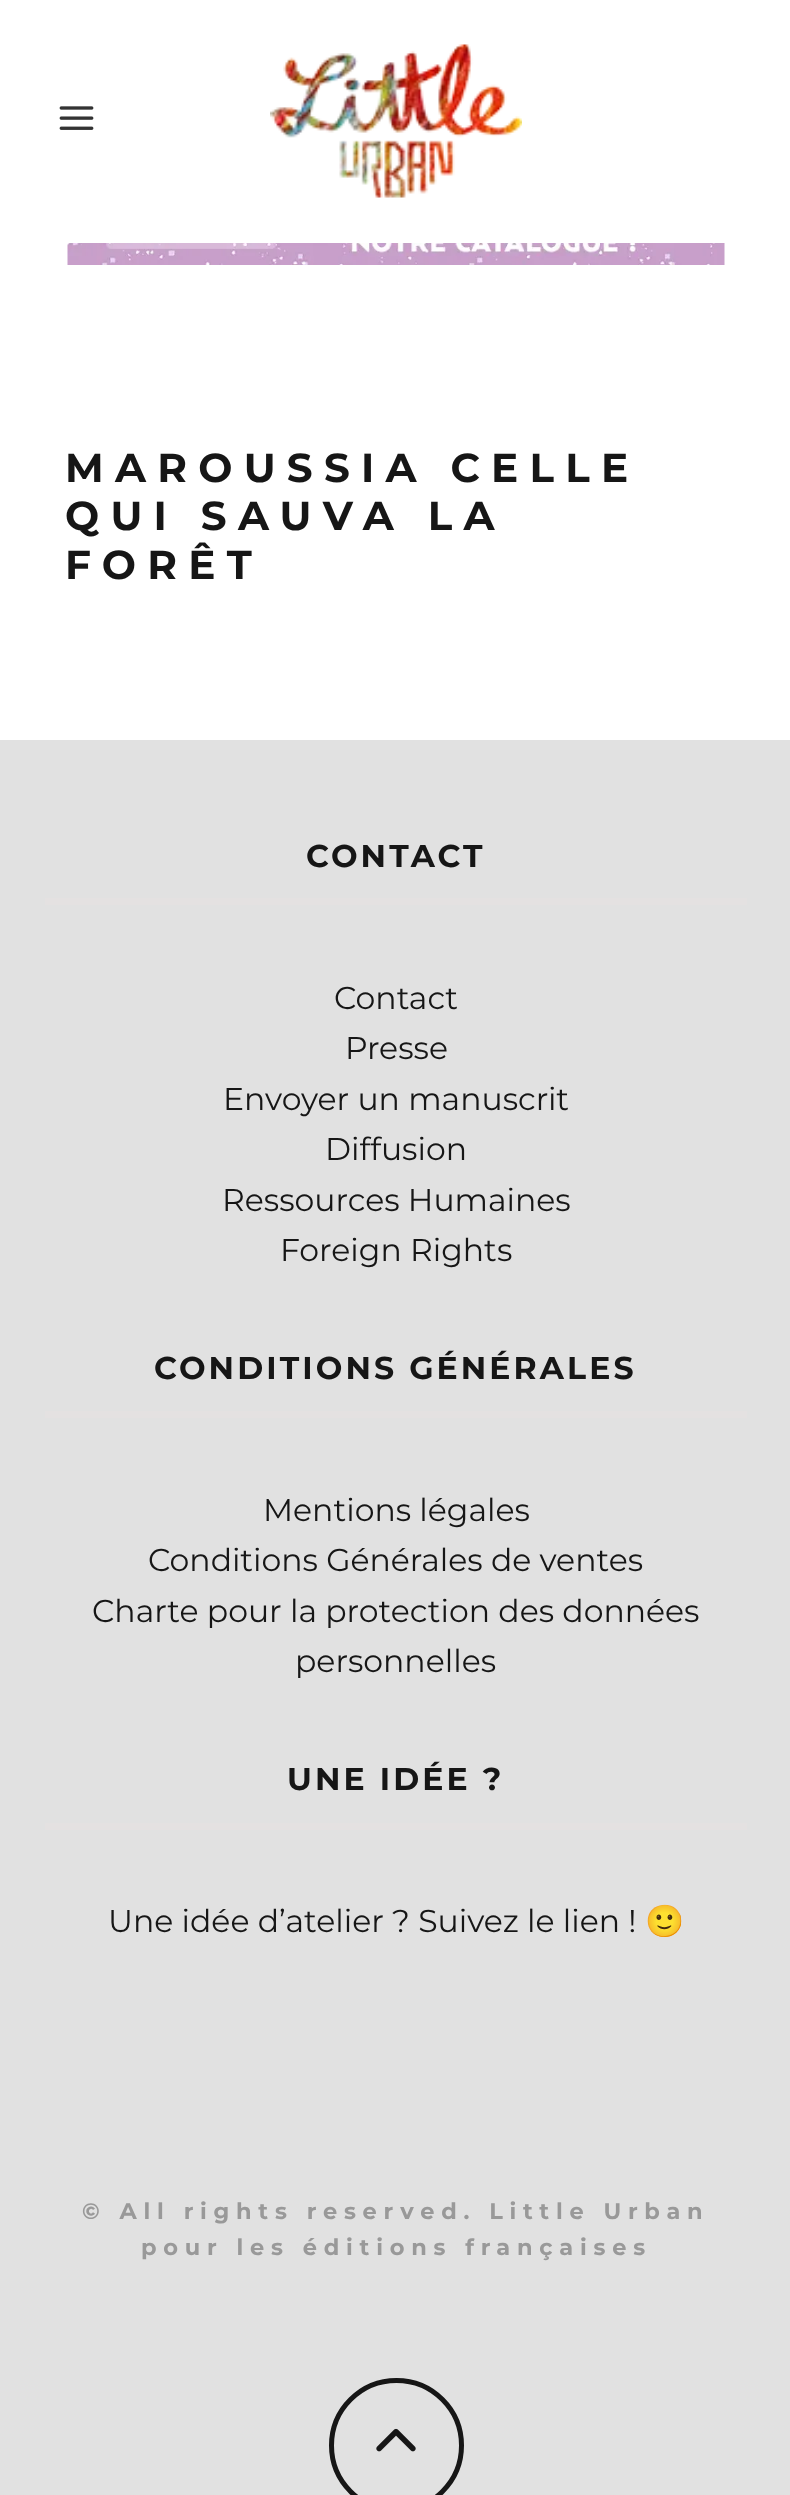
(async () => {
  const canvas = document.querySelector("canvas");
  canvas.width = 790;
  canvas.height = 2495;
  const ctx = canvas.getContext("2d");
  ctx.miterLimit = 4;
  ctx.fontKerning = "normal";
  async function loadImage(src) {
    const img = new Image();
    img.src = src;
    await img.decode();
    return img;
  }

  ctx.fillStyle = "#ffffff";
  ctx.fillRect(0, 0, 790, 2495);
  ctx.drawImage(await loadImage("img/1.png"), 59, 106, 35, 24);
  ctx.drawImage(await loadImage("img/2.png"), 270, 44, 252, 154);
  ctx.drawImage(await loadImage("img/3.png"), 67, 243, 658, 22);
  for (const [x, y, w, h, color] of [
    [0, 740, 790, 1755, "#e1e1e1"],
    [45, 898, 702, 7, "#e4e1e1"],
    [45, 1411, 702, 7, "#e4e1e1"],
    [45, 1823, 702, 7, "#e4e1e1"],
  ]) {
    ctx.fillStyle = color;
    ctx.fillRect(x, y, w, h);
  }
  ctx.beginPath();
  ctx.arc(396.5, 2445.5, 65, 0, Math.PI * 2);
  ctx.strokeStyle = "#161616";
  ctx.lineWidth = 5;
  ctx.stroke();
  ctx.drawImage(await loadImage("img/4.png"), 376, 2428, 40, 24);
  ctx.letterSpacing = "11.25px";
  ctx.font = "bold 40.5px Montserrat";
  ctx.fillStyle = "#161616";
  for (const [text, x, y] of [
    ["MAROUSSIA CELLE", 65, 482],
    ["QUI SAUVA LA", 65, 530],
    ["FORÊT", 65, 579],
  ]) {
    ctx.fillText(text, x, y);
  }
  ctx.letterSpacing = "3.1px";
  ctx.font = "bold 31.5px Montserrat";
  ctx.fillText("CONTACT", 306, 867);
  ctx.letterSpacing = "0px";
  ctx.font = "31.5px Montserrat";
  for (const [text, x, y] of [
    ["Contact", 334, 1009],
    ["Presse", 345, 1059],
    ["Envoyer un manuscrit", 223, 1110],
    ["Diffusion", 325, 1160],
    ["Ressources Humaines", 222, 1211],
    ["Foreign Rights", 280, 1261],
  ]) {
    ctx.fillText(text, x, y);
  }
  ctx.letterSpacing = "3.1px";
  ctx.font = "bold 31.5px Montserrat";
  ctx.fillText("CONDITIONS GÉNÉRALES", 154, 1379);
  ctx.letterSpacing = "0px";
  ctx.font = "31.5px Montserrat";
  for (const [text, x, y] of [
    ["Mentions légales", 263, 1521],
    ["Conditions Générales de ventes", 148, 1571],
    ["Charte pour la protection des données", 92, 1622],
    ["personnelles", 295, 1672],
  ]) {
    ctx.fillText(text, x, y);
  }
  ctx.letterSpacing = "3.1px";
  ctx.font = "bold 31.5px Montserrat";
  ctx.fillText("UNE IDÉE ?", 287, 1790);
  ctx.letterSpacing = "0px";
  ctx.font = "31.5px Montserrat";
  ctx.fillText("Une idée d’atelier ? Suivez le lien !", 108, 1932);
  ctx.font = "31.5px Noto Color Emoji";
  ctx.fillStyle = "#ffffff";
  ctx.fillText("🙂", 645, 1932);
  ctx.letterSpacing = "6.75px";
  ctx.font = "bold 22.5px Montserrat";
  ctx.fillStyle = "#999999";
  ctx.fillText("© All rights reserved. Little Urban", 82, 2219);
  ctx.fillText("pour les éditions françaises", 141, 2255);
})();
